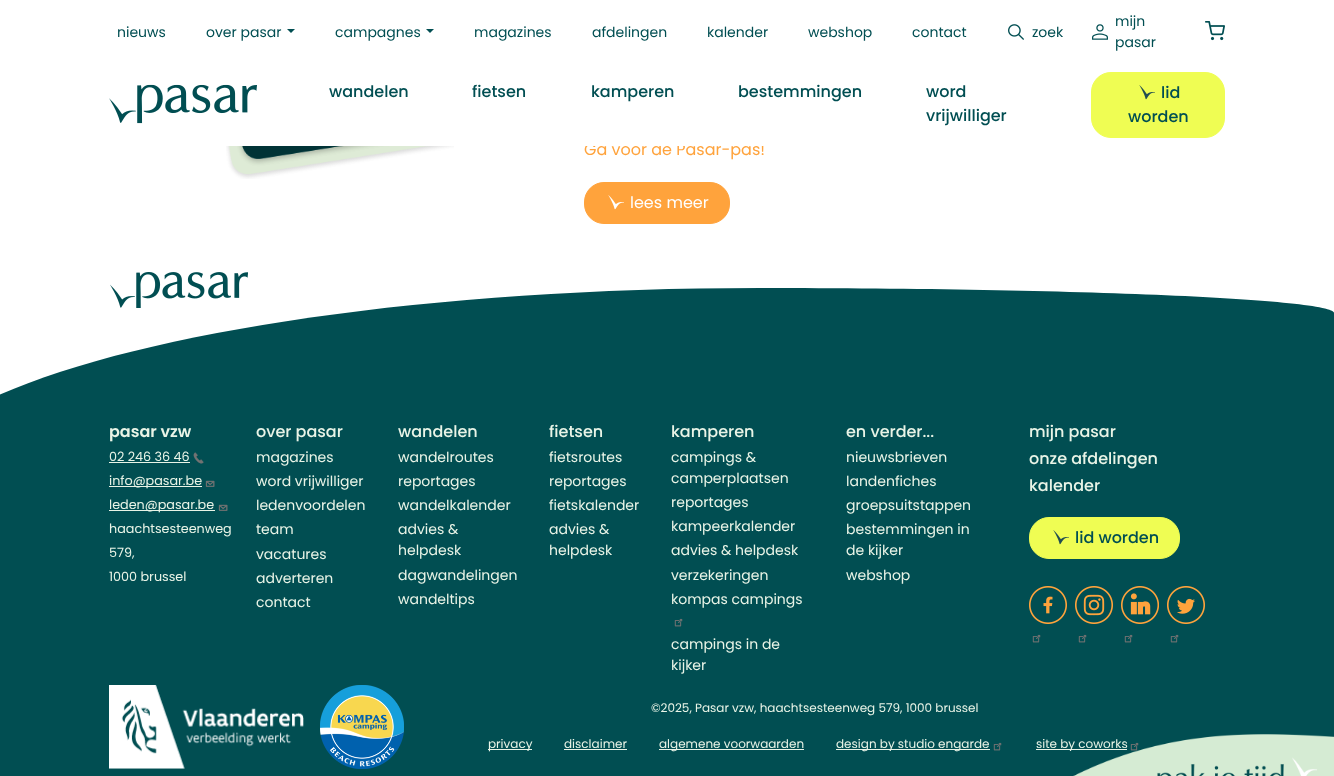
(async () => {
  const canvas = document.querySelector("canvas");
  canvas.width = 1334;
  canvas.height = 776;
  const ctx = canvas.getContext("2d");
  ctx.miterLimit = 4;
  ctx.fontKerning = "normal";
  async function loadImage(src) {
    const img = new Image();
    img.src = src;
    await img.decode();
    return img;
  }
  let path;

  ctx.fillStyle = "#ffffff";
  ctx.fillRect(0, 0, 1334, 776);
  ctx.fillStyle = "#014e52";
  path = new Path2D("M287 29H295L291 33Z");
  ctx.fill(path);
  path = new Path2D("M426 29H434L430 33Z");
  ctx.fill(path);
  ctx.drawImage(await loadImage("img/1.png"), 1008, 24, 16, 16);
  ctx.drawImage(await loadImage("img/2.png"), 1092, 24, 16, 16);
  ctx.drawImage(await loadImage("img/3.png"), 1205, 21, 20, 20);
  ctx.drawImage(await loadImage("img/4.png"), 109, 84, 148, 40);
  ctx.fillStyle = "#effd53";
  ctx.beginPath();
  ctx.roundRect(1091.5, 72.5, 133, 65, 19.5);
  ctx.fill();
  ctx.strokeStyle = "#effd53";
  ctx.stroke();
  ctx.drawImage(await loadImage("img/5.png"), 1139, 85, 16, 15);
  ctx.drawImage(await loadImage("img/6.png"), 226, 146, 228, 33);
  ctx.fillStyle = "#ffa33c";
  ctx.beginPath();
  ctx.roundRect(584.5, 182.5, 145, 41, 19.5);
  ctx.fill();
  ctx.strokeStyle = "#ffa33c";
  ctx.stroke();
  ctx.drawImage(await loadImage("img/7.png"), 608, 195, 16, 15);
  ctx.fillStyle = "#014e52";
  path = new Path2D("M760 288C1077 288 1334 299 1334 313V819H-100V488C-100 378 285 288 760 288Z");
  ctx.fill(path);
  ctx.drawImage(await loadImage("img/8.png"), 110, 272, 138, 36);
  ctx.fillStyle = "#e9f4e7";
  ctx.fillRect(109, 462, 81, 1);
  ctx.drawImage(await loadImage("img/9.png"), 193, 452, 11, 12);
  ctx.fillRect(109, 486, 93, 1);
  ctx.drawImage(await loadImage("img/10.png"), 205, 480, 10, 7);
  ctx.fillRect(109, 510, 106, 1);
  ctx.drawImage(await loadImage("img/10.png"), 218, 504, 10, 7);
  ctx.drawImage(await loadImage("img/11.png"), 674, 618, 9, 9);
  ctx.fillStyle = "#effd53";
  ctx.beginPath();
  ctx.roundRect(1029.5, 517.5, 150, 41, 19.5);
  ctx.fill();
  ctx.strokeStyle = "#effd53";
  ctx.stroke();
  ctx.drawImage(await loadImage("img/5.png"), 1053, 530, 16, 15);
  ctx.drawImage(await loadImage("img/12.png"), 1029, 586, 38, 38);
  ctx.drawImage(await loadImage("img/11.png"), 1032, 634, 9, 9);
  ctx.drawImage(await loadImage("img/13.png"), 1075, 586, 38, 38);
  ctx.drawImage(await loadImage("img/11.png"), 1078, 634, 9, 9);
  ctx.drawImage(await loadImage("img/14.png"), 1121, 586, 38, 38);
  ctx.drawImage(await loadImage("img/11.png"), 1124, 634, 9, 9);
  ctx.drawImage(await loadImage("img/15.png"), 1167, 586, 38, 38);
  ctx.drawImage(await loadImage("img/11.png"), 1170, 634, 9, 9);
  ctx.drawImage(await loadImage("img/16.png"), 1073, 734, 261, 42);
  ctx.drawImage(await loadImage("img/17.png"), 109, 685, 195, 84);
  ctx.drawImage(await loadImage("img/18.png"), 320, 685, 84, 84);
  for (const [x, y, w, h, color] of [
    [488, 749, 44, 1, "#e9f4e7"],
    [564, 749, 63, 1, "#e9f4e7"],
    [659, 749, 145, 1, "#e9f4e7"],
    [836, 749, 154, 1, "#e9f4e7"],
  ]) {
    ctx.fillStyle = color;
    ctx.fillRect(x, y, w, h);
  }
  ctx.drawImage(await loadImage("img/11.png"), 993, 742, 9, 9);
  ctx.fillRect(1036, 749, 91, 1);
  ctx.drawImage(await loadImage("img/19.png"), 1130, 742, 9, 9);
  ctx.font = "14px Poppins";
  ctx.fillStyle = "#014e52";
  for (const [text, x, y] of [
    ["nieuws", 117, 37],
    ["over pasar", 206, 37],
    ["campagnes", 335, 37],
    ["magazines", 474, 37],
    ["afdelingen", 592, 37],
    ["kalender", 707, 37],
    ["webshop", 808, 37],
    ["contact", 912, 37],
    ["zoek", 1032, 37],
    ["mijn", 1115, 26],
    ["pasar", 1115, 47],
  ]) {
    ctx.fillText(text, x, y);
  }
  ctx.font = "500 16px Poppins";
  for (const [text, x, y] of [
    ["wandelen", 329, 97],
    ["fietsen", 472, 97],
    ["kamperen", 591, 97],
    ["bestemmingen", 738, 97],
    ["word", 926, 97],
    ["vrijwilliger", 926, 121],
    ["lid", 1161, 98],
    ["worden", 1128, 122],
  ]) {
    ctx.fillText(text, x, y);
  }
  ctx.font = "16px Poppins";
  ctx.fillStyle = "#ffa33c";
  ctx.fillText("Ga voor de Pasar-pas!", 584, 155);
  ctx.fillStyle = "#ffffff";
  ctx.fillRect(585, 143, 179, 3);
  ctx.fillText("lees meer", 630, 208);
  ctx.font = "600 16px Poppins";
  ctx.fillStyle = "#e9f4e7";
  ctx.fillText("pasar vzw", 109, 437);
  ctx.font = "12.75px Poppins";
  for (const [text, x, y] of [
    ["02 246 36 46", 109, 461],
    ["info@pasar.be", 109, 485],
    ["leden@pasar.be", 109, 509],
    ["haachtsesteenweg", 109, 533],
    ["579,", 109, 557],
    ["1000 brussel", 109, 581],
  ]) {
    ctx.fillText(text, x, y);
  }
  ctx.font = "500 16px Poppins";
  ctx.fillText("over pasar", 256, 437);
  ctx.font = "14px Poppins";
  for (const [text, x, y] of [
    ["magazines", 256, 462],
    ["word vrijwilliger", 256, 486],
    ["ledenvoordelen", 256, 510],
    ["team", 256, 534],
    ["vacatures", 256, 559],
    ["adverteren", 256, 583],
    ["contact", 256, 607],
  ]) {
    ctx.fillText(text, x, y);
  }
  ctx.font = "500 16px Poppins";
  ctx.fillText("wandelen", 398, 437);
  ctx.font = "14px Poppins";
  for (const [text, x, y] of [
    ["wandelroutes", 398, 462],
    ["reportages", 398, 486],
    ["wandelkalender", 398, 510],
    ["advies &", 398, 534],
    ["helpdesk", 398, 555],
    ["dagwandelingen", 398, 580],
    ["wandeltips", 398, 604],
  ]) {
    ctx.fillText(text, x, y);
  }
  ctx.font = "500 16px Poppins";
  ctx.fillText("fietsen", 549, 437);
  ctx.font = "14px Poppins";
  for (const [text, x, y] of [
    ["fietsroutes", 549, 462],
    ["reportages", 549, 486],
    ["fietskalender", 549, 510],
    ["advies &", 549, 534],
    ["helpdesk", 549, 555],
  ]) {
    ctx.fillText(text, x, y);
  }
  ctx.font = "500 16px Poppins";
  ctx.fillText("kamperen", 671, 437);
  ctx.font = "14px Poppins";
  for (const [text, x, y] of [
    ["campings &", 671, 462],
    ["camperplaatsen", 671, 483],
    ["reportages", 671, 507],
    ["kampeerkalender", 671, 531],
    ["advies & helpdesk", 671, 555],
    ["verzekeringen", 671, 580],
    ["kompas campings", 671, 604],
    ["campings in de", 671, 649],
    ["kijker", 671, 670],
  ]) {
    ctx.fillText(text, x, y);
  }
  ctx.font = "500 16px Poppins";
  ctx.fillText("en verder...", 846, 437);
  ctx.font = "14px Poppins";
  for (const [text, x, y] of [
    ["nieuwsbrieven", 846, 462],
    ["landenfiches", 846, 486],
    ["groepsuitstappen", 846, 510],
    ["bestemmingen in", 846, 534],
    ["de kijker", 846, 555],
    ["webshop", 846, 580],
  ]) {
    ctx.fillText(text, x, y);
  }
  ctx.font = "500 16px Poppins";
  for (const [text, x, y] of [
    ["mijn pasar", 1029, 437],
    ["onze afdelingen", 1029, 464],
    ["kalender", 1029, 491],
  ]) {
    ctx.fillText(text, x, y);
  }
  ctx.fillStyle = "#014e52";
  ctx.fillText("lid worden", 1075, 543);
  ctx.font = "12px Poppins";
  ctx.fillStyle = "#e9f4e7";
  for (const [text, x, y] of [
    ["©2025, Pasar vzw, haachtsesteenweg 579, 1000 brussel", 651, 712],
    ["privacy", 488, 748],
    ["disclaimer", 564, 748],
    ["algemene voorwaarden", 659, 748],
    ["design by studio engarde", 836, 748],
    ["site by coworks", 1036, 748],
  ]) {
    ctx.fillText(text, x, y);
  }
})();
